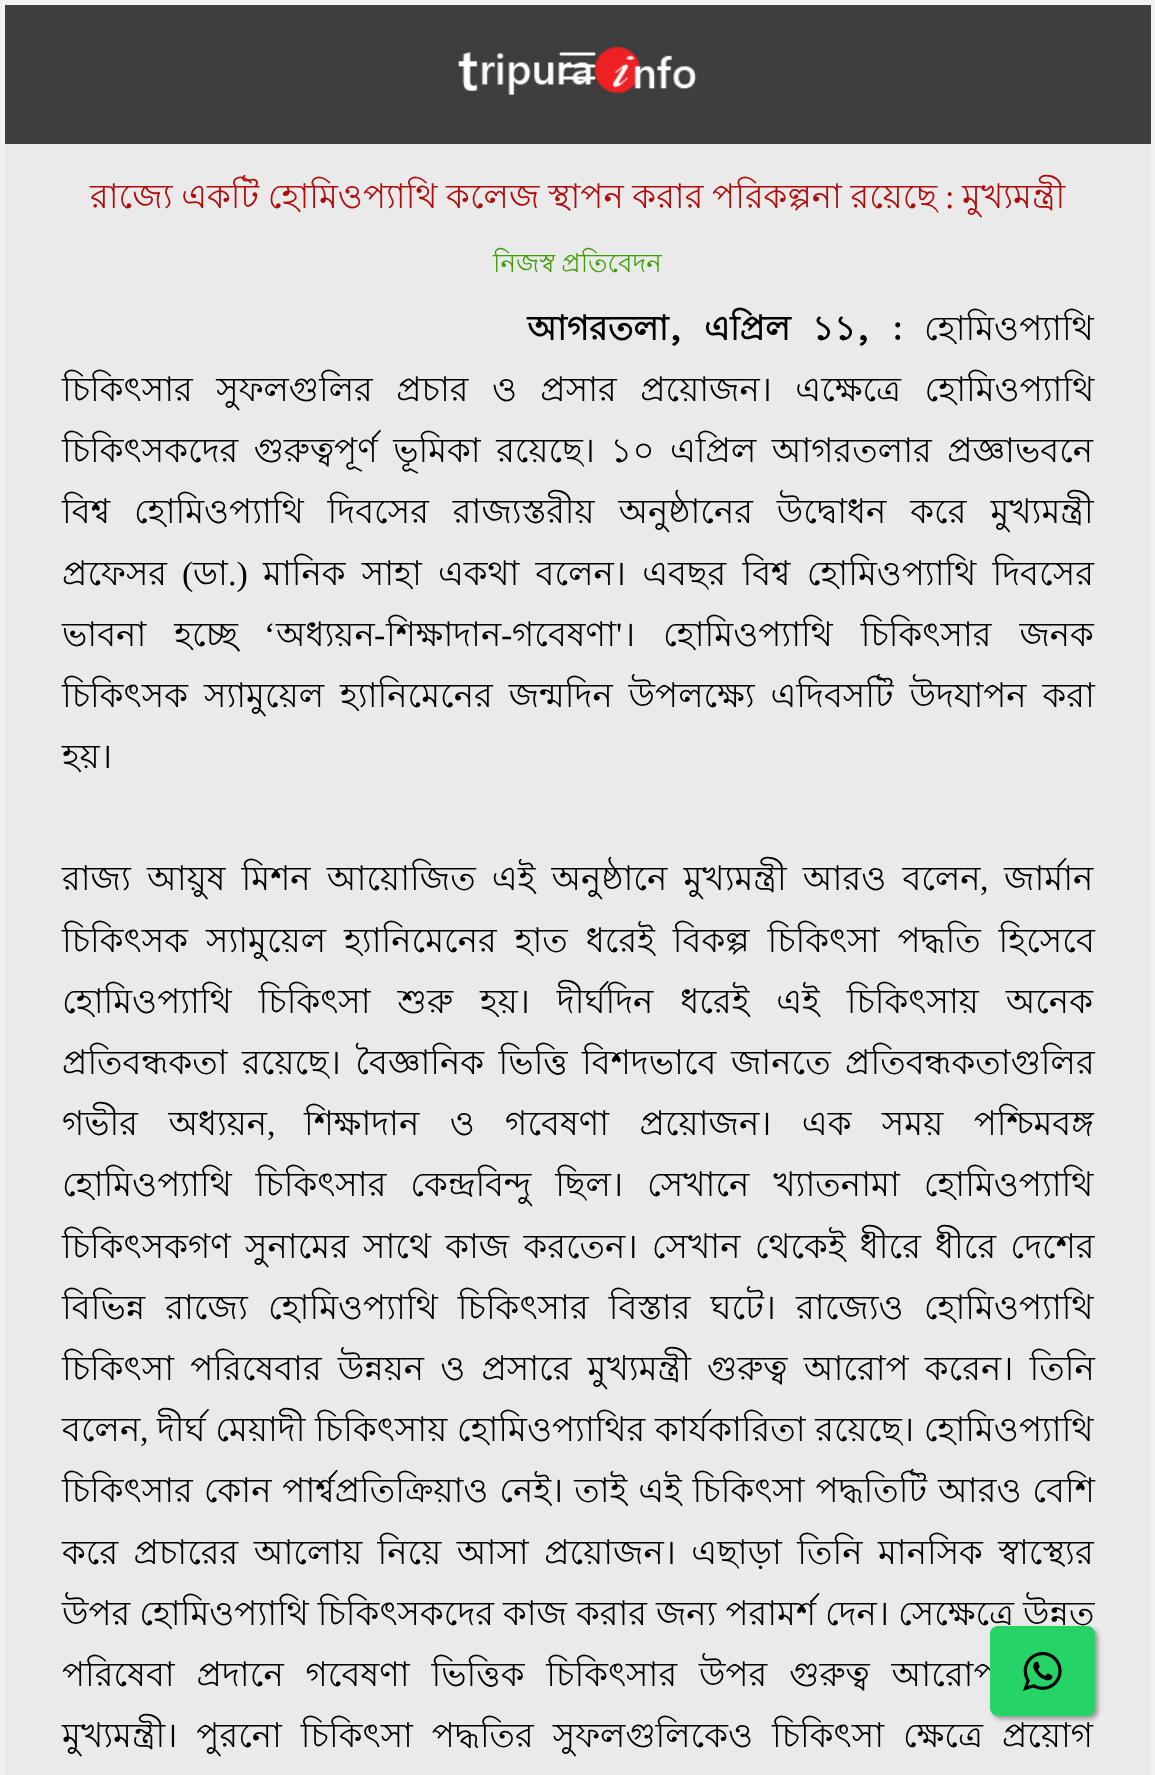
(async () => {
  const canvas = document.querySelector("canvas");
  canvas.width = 1155;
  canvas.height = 1775;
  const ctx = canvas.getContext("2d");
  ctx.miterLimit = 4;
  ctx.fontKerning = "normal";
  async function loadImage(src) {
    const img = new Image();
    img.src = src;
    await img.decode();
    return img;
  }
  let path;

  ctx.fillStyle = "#eaeaea";
  ctx.fillRect(0, 0, 1155, 1775);
  ctx.strokeStyle = "#f1f1f1";
  ctx.lineWidth = 5;
  ctx.strokeRect(2.5, 2.5, 1150, 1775);
  ctx.fillStyle = "#3e3e3e";
  ctx.fillRect(5, 5, 1146, 139);
  ctx.drawImage(await loadImage("img/1.png"), 457, 46, 240, 49);
  path = new Path2D("M561 54H594M561 66H594M561 78H594");
  ctx.strokeStyle = "#fafafa";
  ctx.lineWidth = 3;
  ctx.lineCap = "round";
  ctx.stroke(path);
  ctx.fillStyle = "#999999";
  ctx.filter = "blur(2px)";
  ctx.beginPath();
  ctx.roundRect(993, 1629, 105, 90, 8);
  ctx.fill();
  ctx.filter = "none";
  ctx.wordSpacing = "-0.75px";
  ctx.font = "34px Lohit Bengali";
  ctx.fillStyle = "#af0c0c";
  ctx.fillText("রাজ্যে একটি হোমিওপ্যাথি কলেজ স্থাপন করার পরিকল্পনা রয়েছে", 90, 208);
  ctx.wordSpacing = "0px";
  ctx.font = "34px Liberation Serif";
  ctx.fillText(":", 945, 208);
  ctx.font = "34px Lohit Bengali";
  ctx.fillText("মুখ্যমন্ত্রী", 962, 208);
  ctx.wordSpacing = "-1px";
  ctx.font = "26px Lohit Bengali";
  ctx.fillStyle = "#409d09";
  ctx.fillText("নিজস্ব প্রতিবেদন", 493, 272);
  ctx.wordSpacing = "12px";
  ctx.font = "bold 34px Lohit Bengali";
  ctx.fillStyle = "#000000";
  ctx.fillText("আগরতলা, এপ্রিল ১১, :", 527, 340);
  ctx.wordSpacing = "0px";
  ctx.font = "34px Lohit Bengali";
  ctx.fillText("হোমিওপ্যাথি", 924, 340);
  ctx.wordSpacing = "14px";
  ctx.fillText("চিকিৎসার সুফলগুলির প্রচার ও প্রসার প্রয়োজন। এক্ষেত্রে হোমিওপ্যাথি", 62, 401);
  ctx.wordSpacing = "6px";
  ctx.fillText("চিকিৎসকদের গুরুত্বপূর্ণ ভূমিকা রয়েছে। ১০ এপ্রিল আগরতলার প্রজ্ঞাভবনে", 62, 462);
  ctx.wordSpacing = "14.5px";
  ctx.fillText("বিশ্ব হোমিওপ্যাথি দিবসের রাজ্যস্তরীয় অনুষ্ঠানের উদ্বোধন করে মুখ্যমন্ত্রী", 62, 523);
  ctx.wordSpacing = "0px";
  ctx.fillText("প্রফেসর", 62, 585);
  ctx.font = "34px Liberation Serif";
  ctx.fillText("(", 182, 585);
  ctx.font = "34px Lohit Bengali";
  ctx.fillText("ডা", 193, 585);
  ctx.font = "34px Liberation Serif";
  ctx.fillText(".)", 228, 585);
  ctx.wordSpacing = "6.75px";
  ctx.font = "34px Lohit Bengali";
  ctx.fillText("মানিক সাহা একথা বলেন। এবছর বিশ্ব হোমিওপ্যাথি দিবসের", 263, 585);
  ctx.wordSpacing = "18.5px";
  ctx.fillText("ভাবনা হচ্ছে", 62, 646);
  ctx.wordSpacing = "0px";
  ctx.font = "34px Liberation Serif";
  ctx.fillText("‘", 264, 646);
  ctx.font = "34px Lohit Bengali";
  ctx.fillText("অধ্যয়ন", 276, 646);
  ctx.fillText("গবেষণা", 512, 646);
  ctx.font = "34px Liberation Serif";
  ctx.fillText("'", 616, 646);
  ctx.wordSpacing = "18.5px";
  ctx.font = "34px Lohit Bengali";
  ctx.fillText("। হোমিওপ্যাথি চিকিৎসার জনক", 623, 646);
  ctx.wordSpacing = "0px";
  ctx.font = "34px Liberation Serif";
  ctx.fillText("-", 374, 646);
  ctx.font = "34px Lohit Bengali";
  ctx.fillText("শিক্ষাদান", 386, 646);
  ctx.font = "34px Liberation Serif";
  ctx.fillText("-", 501, 646);
  ctx.wordSpacing = "6.5px";
  ctx.font = "34px Lohit Bengali";
  ctx.fillText("চিকিৎসক স্যামুয়েল হ্যানিমেনের জন্মদিন উপলক্ষ্যে এদিবসটি উদযাপন করা", 62, 707);
  ctx.wordSpacing = "0px";
  ctx.fillText("হয়।", 62, 768);
  ctx.wordSpacing = "6.75px";
  ctx.fillText("রাজ্য আয়ুষ মিশন আয়োজিত এই অনুষ্ঠানে মুখ্যমন্ত্রী আরও বলেন", 62, 890);
  ctx.wordSpacing = "0px";
  ctx.fillText("জার্মান", 1004, 890);
  ctx.font = "34px Liberation Serif";
  ctx.fillText(",", 980, 890);
  ctx.wordSpacing = "8.5px";
  ctx.font = "34px Lohit Bengali";
  ctx.fillText("চিকিৎসক স্যামুয়েল হ্যানিমেনের হাত ধরেই বিকল্প চিকিৎসা পদ্ধতি হিসেবে", 62, 952);
  ctx.wordSpacing = "17.5px";
  ctx.fillText("হোমিওপ্যাথি চিকিৎসা শুরু হয়। দীর্ঘদিন ধরেই এই চিকিৎসায় অনেক", 62, 1013);
  ctx.wordSpacing = "5px";
  ctx.fillText("প্রতিবন্ধকতা রয়েছে। বৈজ্ঞানিক ভিত্তি বিশদভাবে জানতে প্রতিবন্ধকতাগুলির", 62, 1074);
  ctx.wordSpacing = "21px";
  ctx.fillText("গভীর অধ্যয়ন", 62, 1135);
  ctx.wordSpacing = "0px";
  ctx.font = "34px Liberation Serif";
  ctx.fillText(",", 267, 1135);
  ctx.wordSpacing = "21px";
  ctx.font = "34px Lohit Bengali";
  ctx.fillText("শিক্ষাদান ও গবেষণা প্রয়োজন। এক সময় পশ্চিমবঙ্গ", 304, 1135);
  ctx.wordSpacing = "14.5px";
  ctx.fillText("হোমিওপ্যাথি চিকিৎসার কেন্দ্রবিন্দু ছিল। সেখানে খ্যাতনামা হোমিওপ্যাথি", 62, 1196);
  ctx.wordSpacing = "4.75px";
  ctx.fillText("চিকিৎসকগণ সুনামের সাথে কাজ করতেন। সেখান থেকেই ধীরে ধীরে দেশের", 62, 1258);
  ctx.wordSpacing = "10.75px";
  ctx.fillText("বিভিন্ন রাজ্যে হোমিওপ্যাথি চিকিৎসার বিস্তার ঘটে। রাজ্যেও হোমিওপ্যাথি", 62, 1319);
  ctx.wordSpacing = "6.75px";
  ctx.fillText("চিকিৎসা পরিষেবার উন্নয়ন ও প্রসারে মুখ্যমন্ত্রী গুরুত্ব আরোপ করেন। তিনি", 62, 1380);
  ctx.wordSpacing = "0px";
  ctx.fillText("বলেন", 62, 1441);
  ctx.font = "34px Liberation Serif";
  ctx.fillText(",", 140, 1441);
  ctx.wordSpacing = "0.25px";
  ctx.font = "34px Lohit Bengali";
  ctx.fillText("দীর্ঘ মেয়াদী চিকিৎসায় হোমিওপ্যাথির কার্যকারিতা রয়েছে। হোমিওপ্যাথি", 157, 1441);
  ctx.wordSpacing = "1.5px";
  ctx.fillText("চিকিৎসার কোন পার্শ্বপ্রতিক্রিয়াও নেই। তাই এই চিকিৎসা পদ্ধতিটি আরও বেশি", 62, 1502);
  ctx.wordSpacing = "6px";
  ctx.fillText("করে প্রচারের আলোয় নিয়ে আসা প্রয়োজন। এছাড়া তিনি মানসিক স্বাস্থ্যের", 62, 1564);
  ctx.wordSpacing = "-0.5px";
  ctx.fillText("উপর হোমিওপ্যাথি চিকিৎসকদের কাজ করার জন্য পরামর্শ দেন। সেক্ষেত্রে উন্নত", 62, 1625);
  ctx.wordSpacing = "12.5px";
  ctx.fillText("পরিষেবা প্রদানে গবেষণা ভিত্তিক চিকিৎসার উপর গুরুত্ব আরোপ", 62, 1686);
  ctx.wordSpacing = "9.5px";
  ctx.fillText("মুখ্যমন্ত্রী। পুরনো চিকিৎসা পদ্ধতির সুফলগুলিকেও চিকিৎসা ক্ষেত্রে প্রয়োগ", 62, 1747);
  ctx.fillStyle = "#25d366";
  ctx.beginPath();
  ctx.roundRect(990, 1626, 105, 90, 8);
  ctx.fill();
  ctx.drawImage(await loadImage("img/2.png"), 1023, 1652, 39, 39);
})();
